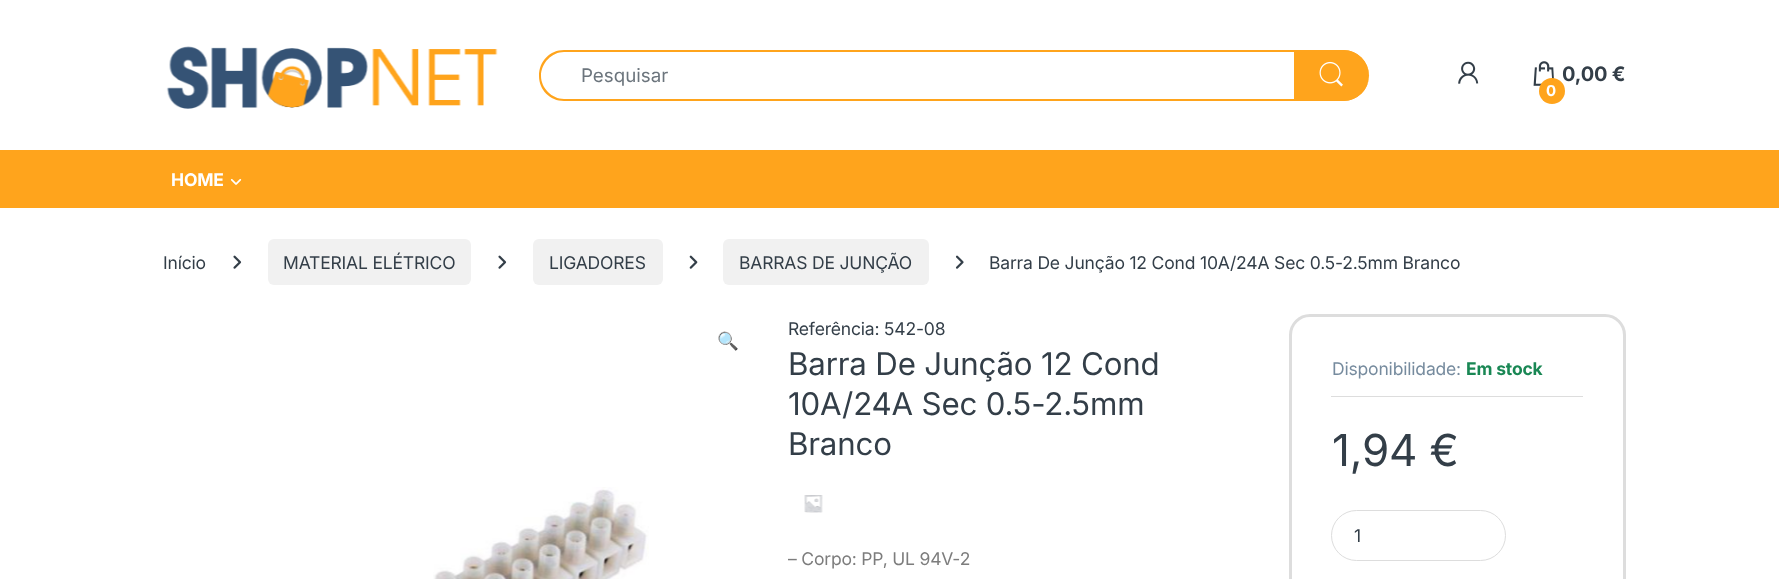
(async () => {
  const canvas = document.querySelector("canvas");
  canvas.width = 1788;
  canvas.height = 579;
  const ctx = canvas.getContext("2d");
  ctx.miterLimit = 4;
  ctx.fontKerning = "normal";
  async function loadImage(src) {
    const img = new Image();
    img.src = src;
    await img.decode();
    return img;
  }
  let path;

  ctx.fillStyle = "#ffffff";
  ctx.fillRect(0, 0, 1788, 579);
  ctx.drawImage(await loadImage("img/1.png"), 166, 46, 332, 63);
  ctx.fillStyle = "#ffa41c";
  path = new Path2D("M564 50H1343C1357 50 1369 61 1369 76C1369 90 1357 101 1343 101H564C550 101 539 90 539 76C539 61 550 50 564 50ZM564 52H1343C1357 52 1369 63 1369 76C1369 88 1357 99 1343 99H564C552 99 541 88 541 76C541 63 552 52 564 52Z");
  ctx.fill(path, "evenodd");
  ctx.beginPath();
  ctx.roundRect(1294, 50, 75, 51, [0, 25.5, 25.5, 0]);
  ctx.fill();
  ctx.drawImage(await loadImage("img/2.png"), 1319, 61, 24, 26);
  ctx.drawImage(await loadImage("img/3.png"), 1458, 61, 21, 23);
  ctx.drawImage(await loadImage("img/4.png"), 1533, 61, 21, 25);
  ctx.fillRect(0, 150, 1779, 58);
  ctx.drawImage(await loadImage("img/5.png"), 230, 178, 12, 7);
  ctx.drawImage(await loadImage("img/6.png"), 233, 255, 9, 14);
  ctx.fillStyle = "#f1f1f1";
  ctx.beginPath();
  ctx.roundRect(268, 239, 203, 46, 6);
  ctx.fill();
  ctx.drawImage(await loadImage("img/6.png"), 498, 255, 9, 14);
  ctx.beginPath();
  ctx.roundRect(533, 239, 130, 46, 6);
  ctx.fill();
  ctx.drawImage(await loadImage("img/7.png"), 689, 255, 9, 14);
  ctx.beginPath();
  ctx.roundRect(723, 239, 206, 46, 6);
  ctx.fill();
  ctx.drawImage(await loadImage("img/8.png"), 955, 255, 9, 14);
  ctx.drawImage(await loadImage("img/9.png"), 433, 487, 216, 92);
  ctx.drawImage(await loadImage("img/10.png"), 804, 495, 19, 18);
  ctx.beginPath();
  ctx.roundRect(1290.5, 315.5, 334, 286, 19.5);
  ctx.strokeStyle = "#dddddd";
  ctx.lineWidth = 3;
  ctx.stroke();
  ctx.fillStyle = "#dddddd";
  ctx.fillRect(1331, 396, 252, 1);
  ctx.beginPath();
  ctx.roundRect(1331.5, 510.5, 174, 50, 25);
  ctx.lineWidth = 1;
  ctx.stroke();
  ctx.font = "18.75px Inter";
  ctx.fillStyle = "#6c757d";
  ctx.fillText("Pesquisar", 581, 82);
  ctx.letterSpacing = "-0.18px";
  ctx.font = "bold 20px Inter";
  ctx.fillStyle = "#333e48";
  ctx.fillText("0,00 €", 1562, 81);
  ctx.fillStyle = "#ffa41c";
  ctx.beginPath();
  ctx.arc(1552, 91, 13, 0, Math.PI * 2);
  ctx.fill();
  ctx.font = "bold 15px Inter";
  ctx.fillStyle = "#ffffff";
  ctx.fillText("0", 1546, 96);
  ctx.font = "bold 17.5px Inter";
  ctx.fillText("HOME", 171, 186);
  ctx.font = "17.5px Inter";
  ctx.fillStyle = "#333e48";
  for (const [text, x, y] of [
    ["Início", 163, 269],
    ["MATERIAL ELÉTRICO", 283, 269],
    ["LIGADORES", 549, 269],
    ["BARRAS DE JUNÇÃO", 739, 269],
    ["Barra De Junção 12 Cond 10A/24A Sec 0.5-2.5mm Branco", 989, 269],
  ]) {
    ctx.fillText(text, x, y);
  }
  ctx.font = "17.5px Noto Color Emoji";
  ctx.fillText("🔍", 717, 347);
  ctx.font = "17.5px Inter";
  ctx.fillText("Referência: 542-08", 788, 335);
  ctx.font = "31.25px Inter";
  for (const [text, x, y] of [
    ["Barra De Junção 12 Cond", 788, 375],
    ["10A/24A Sec 0.5-2.5mm", 788, 415],
    ["Branco", 788, 455],
  ]) {
    ctx.fillText(text, x, y);
  }
  ctx.font = "17.5px Inter";
  ctx.fillStyle = "#7d7d7d";
  ctx.fillText("– Corpo: PP, UL 94V-2", 788, 565);
  ctx.fillStyle = "#768b9e";
  ctx.fillText("Disponibilidade:", 1332, 375);
  ctx.font = "bold 17.5px Inter";
  ctx.fillStyle = "#198754";
  ctx.fillText("Em stock", 1466, 375);
  ctx.font = "44px Inter";
  ctx.fillStyle = "#333e48";
  ctx.fillText("1,94 €", 1332, 466);
  ctx.letterSpacing = "0px";
  ctx.font = "17.5px Inter";
  ctx.fillText("1", 1354, 542);
})();
